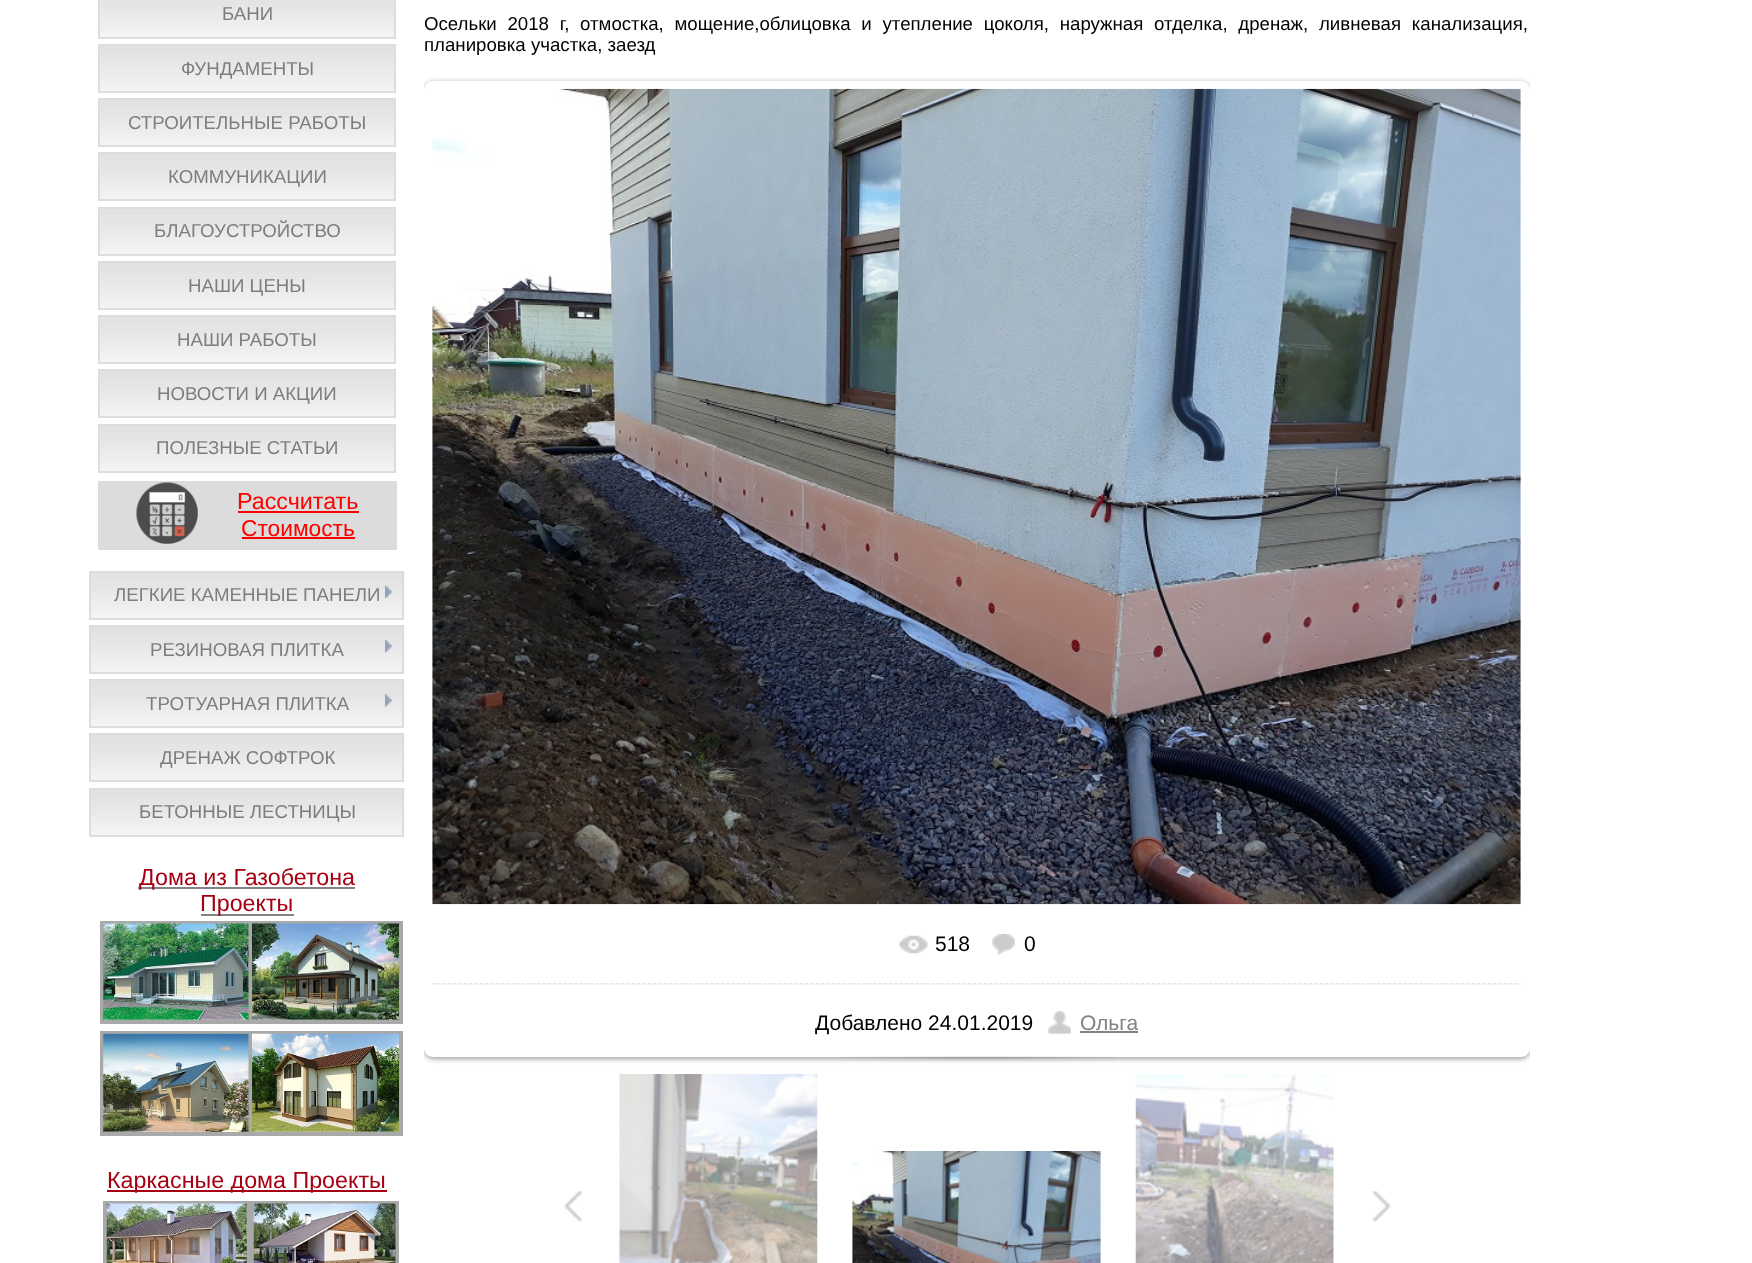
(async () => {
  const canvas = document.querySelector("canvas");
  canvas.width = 1752;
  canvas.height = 1263;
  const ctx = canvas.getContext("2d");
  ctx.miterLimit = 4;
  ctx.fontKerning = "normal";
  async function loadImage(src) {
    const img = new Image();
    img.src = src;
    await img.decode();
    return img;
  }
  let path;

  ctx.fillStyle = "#ffffff";
  ctx.fillRect(0, 0, 1752, 1263);
  ctx.drawImage(await loadImage("img/1.png"), 100, 0, 294, 37);
  ctx.strokeStyle = "#dddddd";
  ctx.lineWidth = 2;
  ctx.strokeRect(99, -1, 296, 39);
  ctx.drawImage(await loadImage("img/2.png"), 100, 46, 294, 45);
  ctx.strokeRect(99, 45, 296, 47);
  ctx.drawImage(await loadImage("img/3.png"), 100, 100, 294, 45);
  ctx.strokeRect(99, 99, 296, 47);
  ctx.drawImage(await loadImage("img/4.png"), 100, 154, 294, 45);
  ctx.strokeRect(99, 153, 296, 47);
  ctx.drawImage(await loadImage("img/5.png"), 100, 209, 294, 45);
  ctx.strokeRect(99, 208, 296, 47);
  ctx.drawImage(await loadImage("img/2.png"), 100, 263, 294, 45);
  ctx.strokeRect(99, 262, 296, 47);
  ctx.drawImage(await loadImage("img/3.png"), 100, 317, 294, 45);
  ctx.strokeRect(99, 316, 296, 47);
  ctx.drawImage(await loadImage("img/4.png"), 100, 371, 294, 45);
  ctx.strokeRect(99, 370, 296, 47);
  ctx.drawImage(await loadImage("img/5.png"), 100, 426, 294, 45);
  ctx.strokeRect(99, 425, 296, 47);
  ctx.fillStyle = "#dcdcdc";
  ctx.fillRect(98, 481, 299, 69);
  ctx.drawImage(await loadImage("img/6.png"), 136, 482, 62, 62);
  ctx.fillStyle = "#ff0000";
  ctx.fillRect(238, 511, 121, 2);
  ctx.fillRect(242, 537, 113, 2);
  ctx.drawImage(await loadImage("img/7.png"), 91, 571, 314, 48);
  ctx.strokeRect(90, 572, 313, 47);
  ctx.drawImage(await loadImage("img/8.png"), 385, 585, 7, 13);
  ctx.drawImage(await loadImage("img/9.png"), 91, 626, 314, 47);
  ctx.strokeRect(90, 626, 313, 47);
  ctx.drawImage(await loadImage("img/10.png"), 385, 640, 7, 13);
  ctx.drawImage(await loadImage("img/11.png"), 91, 680, 314, 48);
  ctx.strokeRect(90, 680, 313, 47);
  ctx.drawImage(await loadImage("img/12.png"), 385, 694, 7, 13);
  ctx.drawImage(await loadImage("img/13.png"), 91, 734, 314, 48);
  ctx.strokeRect(90, 734, 313, 47);
  ctx.drawImage(await loadImage("img/7.png"), 91, 788, 314, 48);
  ctx.strokeRect(90, 789, 313, 47);
  ctx.fillStyle = "#838383";
  ctx.fillRect(138, 887, 217, 2);
  ctx.fillRect(201, 914, 93, 2);
  ctx.strokeStyle = "#a9a9a9";
  ctx.lineWidth = 4;
  ctx.strokeRect(102, 923, 148, 99);
  ctx.drawImage(await loadImage("img/14.png"), 103, 923, 146, 97);
  ctx.strokeRect(251, 923, 150, 99);
  ctx.drawImage(await loadImage("img/15.png"), 252, 923, 147, 97);
  ctx.strokeRect(102, 1033, 148, 101);
  ctx.drawImage(await loadImage("img/16.png"), 103, 1033, 146, 99);
  ctx.strokeRect(251, 1033, 150, 101);
  ctx.drawImage(await loadImage("img/17.png"), 252, 1033, 147, 99);
  ctx.fillStyle = "#a60012";
  ctx.fillRect(107, 1190, 280, 2);
  ctx.strokeRect(105, 1203, 143, 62);
  ctx.drawImage(await loadImage("img/18.png"), 106, 1203, 141, 60);
  ctx.strokeRect(252, 1203, 145, 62);
  ctx.drawImage(await loadImage("img/19.png"), 253, 1203, 143, 60);
  ctx.save();
  ctx.beginPath();
  ctx.rect(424, 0, 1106, 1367);
  ctx.clip();
  path = new Path2D("M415 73H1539V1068H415ZM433 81H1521C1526 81 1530 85 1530 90V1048C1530 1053 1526 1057 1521 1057H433C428 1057 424 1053 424 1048V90C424 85 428 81 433 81Z");
  ctx.clip(path, "evenodd");
  ctx.fillStyle = "rgba(0, 0, 0, 0.37)";
  ctx.filter = "blur(2.5px)";
  ctx.beginPath();
  ctx.roundRect(424, 82, 1106, 977, 9);
  ctx.fill();
  ctx.filter = "none";
  ctx.restore();
  ctx.drawImage(await loadImage("img/20.png"), 432, 88, 1089, 817);
  ctx.drawImage(await loadImage("img/21.png"), 899, 935, 29, 19);
  ctx.drawImage(await loadImage("img/22.png"), 992, 934, 23, 21);
  ctx.drawImage(await loadImage("img/23.png"), 432, 983, 1089, 2);
  ctx.drawImage(await loadImage("img/24.png"), 1048, 1011, 23, 23);
  ctx.fillStyle = "#838383";
  ctx.fillRect(1080, 1031, 58, 2);
  ctx.drawImage(await loadImage("img/25.png"), 841, 1056, 273, 6);
  ctx.drawImage(await loadImage("img/26.png"), 563, 1191, 20, 31);
  ctx.drawImage(await loadImage("img/27.png"), 619, 1074, 199, 189);
  ctx.drawImage(await loadImage("img/28.png"), 852, 1151, 249, 112);
  ctx.drawImage(await loadImage("img/29.png"), 1135, 1074, 199, 189);
  ctx.drawImage(await loadImage("img/30.png"), 1372, 1191, 20, 31);
  ctx.font = "18.67px Liberation Sans";
  ctx.fillStyle = "#7d7d7d";
  for (const [text, x, y] of [
    ["БАНИ", 222, 20],
    ["ФУНДАМЕНТЫ", 181, 75],
    ["СТРОИТЕЛЬНЫЕ РАБОТЫ", 128, 129],
    ["КОММУНИКАЦИИ", 168, 183],
    ["БЛАГОУСТРОЙСТВО", 154, 237],
    ["НАШИ ЦЕНЫ", 188, 292],
    ["НАШИ РАБОТЫ", 177, 346],
    ["НОВОСТИ И АКЦИИ", 157, 400],
    ["ПОЛЕЗНЫЕ СТАТЬИ", 156, 454],
  ]) {
    ctx.fillText(text, x, y);
  }
  ctx.font = "23.25px Liberation Sans";
  ctx.fillStyle = "#ff0000";
  ctx.fillText("Рассчитать", 237, 509);
  ctx.font = "22.75px Liberation Sans";
  ctx.fillText("Стоимость", 241, 536);
  ctx.font = "18.67px Liberation Sans";
  ctx.fillStyle = "#7d7d7d";
  for (const [text, x, y] of [
    ["ЛЕГКИЕ КАМЕННЫЕ ПАНЕЛИ", 114, 601],
    ["РЕЗИНОВАЯ ПЛИТКА", 150, 656],
    ["ТРОТУАРНАЯ ПЛИТКА", 146, 710],
    ["ДРЕНАЖ СОФТРОК", 160, 764],
    ["БЕТОННЫЕ ЛЕСТНИЦЫ", 139, 818],
  ]) {
    ctx.fillText(text, x, y);
  }
  ctx.font = "23.25px Liberation Sans";
  ctx.fillStyle = "#a60012";
  for (const [text, x, y] of [
    ["Дома из Газобетона", 139, 885],
    ["Проекты", 200, 911],
    ["Каркасные дома Проекты", 107, 1188],
  ]) {
    ctx.fillText(text, x, y);
  }
  ctx.wordSpacing = "5.5px";
  ctx.font = "18.67px Liberation Sans";
  ctx.fillStyle = "#000000";
  ctx.fillText("Осельки 2018 г, отмостка, мощение,облицовка и утепление цоколя, наружная отделка, дренаж, ливневая канализация,", 424, 30);
  ctx.wordSpacing = "0px";
  ctx.fillText("планировка участка, заезд", 424, 51);
  ctx.font = "21px Liberation Sans";
  for (const [text, x, y] of [
    ["518", 935, 951],
    ["0", 1024, 951],
    ["Добавлено 24.01.2019", 815, 1030],
  ]) {
    ctx.fillText(text, x, y);
  }
  ctx.fillStyle = "#838383";
  ctx.fillText("Ольга", 1080, 1030);
})();
